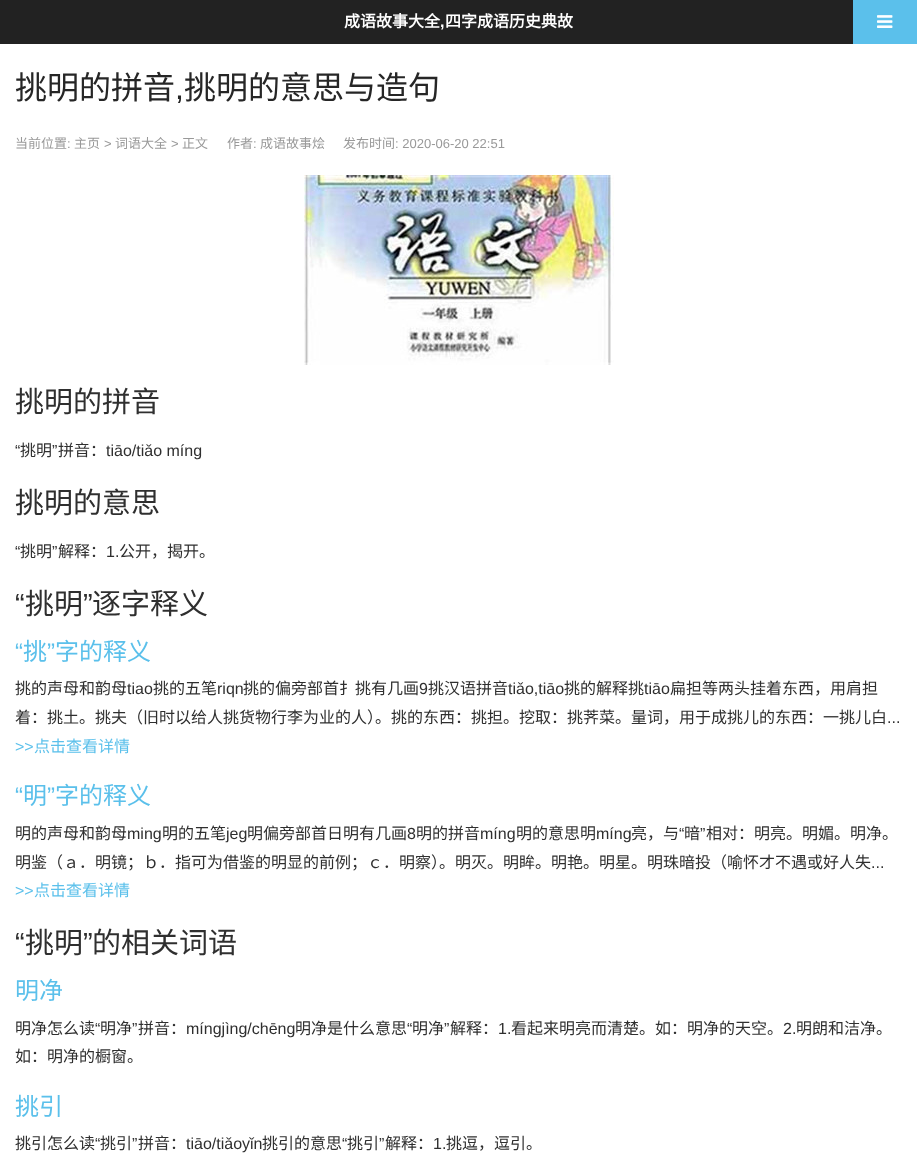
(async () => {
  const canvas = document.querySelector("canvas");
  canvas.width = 917;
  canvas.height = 1164;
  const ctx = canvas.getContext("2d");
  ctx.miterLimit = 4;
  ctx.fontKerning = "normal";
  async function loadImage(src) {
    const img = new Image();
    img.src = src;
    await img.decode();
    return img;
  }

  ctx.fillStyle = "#ffffff";
  ctx.fillRect(0, 0, 917, 1164);
  ctx.fillStyle = "#222222";
  ctx.fillRect(0, 0, 853, 44);
  ctx.fillStyle = "#5bc0eb";
  ctx.fillRect(853, 0, 64, 44);
  ctx.drawImage(await loadImage("img/1.png"), 877, 15, 16, 13);
  ctx.drawImage(await loadImage("img/2.png"), 304, 175, 310, 190);
  ctx.font = "bold 16px Noto Sans CJK SC";
  ctx.fillStyle = "#ffffff";
  ctx.fillText("成语故事大全", 344, 27);
  ctx.font = "bold 16px Liberation Sans";
  ctx.fillText(",", 440, 27);
  ctx.font = "bold 16px Noto Sans CJK SC";
  ctx.fillText("四字成语历史典故", 445, 27);
  ctx.font = "32px Noto Sans CJK SC";
  ctx.fillStyle = "#262626";
  ctx.fillText("挑明的拼音", 15, 99);
  ctx.font = "32px Liberation Sans";
  ctx.fillText(",", 175, 99);
  ctx.font = "32px Noto Sans CJK SC";
  ctx.fillText("挑明的意思与造句", 184, 99);
  ctx.font = "13px Noto Sans CJK SC";
  ctx.fillStyle = "#999999";
  ctx.fillText("当前位置", 15, 148);
  ctx.font = "13px Liberation Sans";
  ctx.fillText(":", 67, 148);
  ctx.font = "13px Noto Sans CJK SC";
  ctx.fillText("主页", 74, 148);
  ctx.font = "13px Liberation Sans";
  ctx.fillText(">", 104, 148);
  ctx.font = "13px Noto Sans CJK SC";
  ctx.fillText("词语大全", 115, 148);
  ctx.font = "13px Liberation Sans";
  ctx.fillText(">", 171, 148);
  ctx.font = "13px Noto Sans CJK SC";
  ctx.fillText("正文", 182, 148);
  ctx.fillText("作者", 227, 148);
  ctx.font = "13px Liberation Sans";
  ctx.fillText(":", 253, 148);
  ctx.font = "13px Noto Sans CJK SC";
  ctx.fillText("成语故事烩", 260, 148);
  ctx.fillText("发布时间", 343, 148);
  ctx.font = "13px Liberation Sans";
  ctx.fillText(": 2020-06-20 22:51", 395, 148);
  ctx.font = "29px Noto Sans CJK SC";
  ctx.fillStyle = "#2f2f2f";
  ctx.fillText("挑明的拼音", 15, 412);
  ctx.font = "16px Liberation Sans";
  ctx.fillText("“", 15, 456);
  ctx.font = "16px Noto Sans CJK SC";
  ctx.fillText("挑明", 20, 456);
  ctx.font = "16px Liberation Sans";
  ctx.fillText("”", 52, 456);
  ctx.font = "16px Noto Sans CJK SC";
  ctx.fillText("拼音：", 58, 456);
  ctx.font = "16px Liberation Sans";
  ctx.fillText("tiāo/tiǎo míng", 106, 456);
  ctx.font = "29px Noto Sans CJK SC";
  ctx.fillText("挑明的意思", 15, 513);
  ctx.font = "16px Liberation Sans";
  ctx.fillText("“", 15, 557);
  ctx.font = "16px Noto Sans CJK SC";
  ctx.fillText("挑明", 20, 557);
  ctx.font = "16px Liberation Sans";
  ctx.fillText("”", 52, 557);
  ctx.font = "16px Noto Sans CJK SC";
  ctx.fillText("解释：", 58, 557);
  ctx.font = "16px Liberation Sans";
  ctx.fillText("1.", 106, 557);
  ctx.font = "16px Noto Sans CJK SC";
  ctx.fillText("公开，揭开。", 119, 557);
  ctx.font = "29px Liberation Sans";
  ctx.fillText("“", 15, 614);
  ctx.font = "29px Noto Sans CJK SC";
  ctx.fillText("挑明", 25, 614);
  ctx.font = "29px Liberation Sans";
  ctx.fillText("”", 83, 614);
  ctx.font = "29px Noto Sans CJK SC";
  ctx.fillText("逐字释义", 92, 614);
  ctx.font = "24px Liberation Sans";
  ctx.fillStyle = "#5bc0eb";
  ctx.fillText("“", 15, 660);
  ctx.font = "24px Noto Sans CJK SC";
  ctx.fillText("挑", 23, 660);
  ctx.font = "24px Liberation Sans";
  ctx.fillText("”", 47, 660);
  ctx.font = "24px Noto Sans CJK SC";
  ctx.fillText("字的释义", 55, 660);
  ctx.font = "16px Noto Sans CJK SC";
  ctx.fillStyle = "#2f2f2f";
  ctx.fillText("挑的声母和韵母", 15, 694);
  ctx.font = "16px Liberation Sans";
  ctx.fillText("tiao", 127, 694);
  ctx.font = "16px Noto Sans CJK SC";
  ctx.fillText("挑的五笔", 153, 694);
  ctx.font = "16px Liberation Sans";
  ctx.fillText("riqn", 217, 694);
  ctx.font = "16px Noto Sans CJK SC";
  ctx.fillText("挑的偏旁部首扌挑有几画", 243, 694);
  ctx.font = "16px Liberation Sans";
  ctx.fillText("9", 419, 694);
  ctx.font = "16px Noto Sans CJK SC";
  ctx.fillText("挑汉语拼音", 428, 694);
  ctx.font = "16px Liberation Sans";
  ctx.fillText("tiǎo,tiāo", 508, 694);
  ctx.font = "16px Noto Sans CJK SC";
  ctx.fillText("挑的解释挑", 564, 694);
  ctx.font = "16px Liberation Sans";
  ctx.fillText("tiāo", 644, 694);
  ctx.font = "16px Noto Sans CJK SC";
  ctx.fillText("扁担等两头挂着东西，用肩担", 670, 694);
  ctx.fillText("着：挑土。挑夫（旧时以给人挑货物行李为业的人）。挑的东西：挑担。挖取：挑荠菜。量词，用于成挑儿的东西：一挑儿白", 15, 723);
  ctx.font = "16px Liberation Sans";
  ctx.fillText("...", 887, 723);
  ctx.fillStyle = "#5bc0eb";
  ctx.fillText(">>", 15, 752);
  ctx.font = "16px Noto Sans CJK SC";
  ctx.fillText("点击查看详情", 34, 752);
  ctx.font = "24px Liberation Sans";
  ctx.fillText("“", 15, 804);
  ctx.font = "24px Noto Sans CJK SC";
  ctx.fillText("明", 23, 804);
  ctx.font = "24px Liberation Sans";
  ctx.fillText("”", 47, 804);
  ctx.font = "24px Noto Sans CJK SC";
  ctx.fillText("字的释义", 55, 804);
  ctx.font = "16px Noto Sans CJK SC";
  ctx.fillStyle = "#2f2f2f";
  ctx.fillText("明的声母和韵母", 15, 839);
  ctx.font = "16px Liberation Sans";
  ctx.fillText("ming", 127, 839);
  ctx.font = "16px Noto Sans CJK SC";
  ctx.fillText("明的五笔", 162, 839);
  ctx.font = "16px Liberation Sans";
  ctx.fillText("jeg", 226, 839);
  ctx.font = "16px Noto Sans CJK SC";
  ctx.fillText("明偏旁部首日明有几画", 247, 839);
  ctx.font = "16px Liberation Sans";
  ctx.fillText("8", 407, 839);
  ctx.font = "16px Noto Sans CJK SC";
  ctx.fillText("明的拼音", 416, 839);
  ctx.font = "16px Liberation Sans";
  ctx.fillText("míng", 480, 839);
  ctx.font = "16px Noto Sans CJK SC";
  ctx.fillText("明的意思明", 516, 839);
  ctx.font = "16px Liberation Sans";
  ctx.fillText("míng", 596, 839);
  ctx.font = "16px Noto Sans CJK SC";
  ctx.fillText("亮，与", 631, 839);
  ctx.font = "16px Liberation Sans";
  ctx.fillText("“", 679, 839);
  ctx.font = "16px Noto Sans CJK SC";
  ctx.fillText("暗", 684, 839);
  ctx.font = "16px Liberation Sans";
  ctx.fillText("”", 700, 839);
  ctx.font = "16px Noto Sans CJK SC";
  ctx.fillText("相对：明亮。明媚。明净。", 706, 839);
  ctx.fillText("明鉴（ａ．明镜；ｂ．指可为借鉴的明显的前例；ｃ．明察）。明灭。明眸。明艳。明星。明珠暗投（喻怀才不遇或好人失", 15, 868);
  ctx.font = "16px Liberation Sans";
  ctx.fillText("...", 871, 868);
  ctx.fillStyle = "#5bc0eb";
  ctx.fillText(">>", 15, 896);
  ctx.font = "16px Noto Sans CJK SC";
  ctx.fillText("点击查看详情", 34, 896);
  ctx.font = "29px Liberation Sans";
  ctx.fillStyle = "#2f2f2f";
  ctx.fillText("“", 15, 953);
  ctx.font = "29px Noto Sans CJK SC";
  ctx.fillText("挑明", 25, 953);
  ctx.font = "29px Liberation Sans";
  ctx.fillText("”", 83, 953);
  ctx.font = "29px Noto Sans CJK SC";
  ctx.fillText("的相关词语", 92, 953);
  ctx.font = "24px Noto Sans CJK SC";
  ctx.fillStyle = "#5bc0eb";
  ctx.fillText("明净", 15, 999);
  ctx.font = "16px Noto Sans CJK SC";
  ctx.fillStyle = "#2f2f2f";
  ctx.fillText("明净怎么读", 15, 1034);
  ctx.font = "16px Liberation Sans";
  ctx.fillText("“", 95, 1034);
  ctx.font = "16px Noto Sans CJK SC";
  ctx.fillText("明净", 100, 1034);
  ctx.font = "16px Liberation Sans";
  ctx.fillText("”", 132, 1034);
  ctx.font = "16px Noto Sans CJK SC";
  ctx.fillText("拼音：", 138, 1034);
  ctx.font = "16px Liberation Sans";
  ctx.fillText("míngjìng/chēng", 186, 1034);
  ctx.font = "16px Noto Sans CJK SC";
  ctx.fillText("明净是什么意思", 295, 1034);
  ctx.font = "16px Liberation Sans";
  ctx.fillText("“", 407, 1034);
  ctx.font = "16px Noto Sans CJK SC";
  ctx.fillText("明净", 412, 1034);
  ctx.font = "16px Liberation Sans";
  ctx.fillText("”", 444, 1034);
  ctx.font = "16px Noto Sans CJK SC";
  ctx.fillText("解释：", 450, 1034);
  ctx.font = "16px Liberation Sans";
  ctx.fillText("1.", 498, 1034);
  ctx.font = "16px Noto Sans CJK SC";
  ctx.fillText("看起来明亮而清楚。如：明净的天空。", 511, 1034);
  ctx.font = "16px Liberation Sans";
  ctx.fillText("2.", 783, 1034);
  ctx.font = "16px Noto Sans CJK SC";
  ctx.fillText("明朗和洁净。", 796, 1034);
  ctx.fillText("如：明净的橱窗。", 15, 1062);
  ctx.font = "24px Noto Sans CJK SC";
  ctx.fillStyle = "#5bc0eb";
  ctx.fillText("挑引", 15, 1115);
  ctx.font = "16px Noto Sans CJK SC";
  ctx.fillStyle = "#2f2f2f";
  ctx.fillText("挑引怎么读", 15, 1149);
  ctx.font = "16px Liberation Sans";
  ctx.fillText("“", 95, 1149);
  ctx.font = "16px Noto Sans CJK SC";
  ctx.fillText("挑引", 100, 1149);
  ctx.font = "16px Liberation Sans";
  ctx.fillText("”", 132, 1149);
  ctx.font = "16px Noto Sans CJK SC";
  ctx.fillText("拼音：", 138, 1149);
  ctx.font = "16px Liberation Sans";
  ctx.fillText("tiāo/tiǎoyǐn", 186, 1149);
  ctx.font = "16px Noto Sans CJK SC";
  ctx.fillText("挑引的意思", 262, 1149);
  ctx.font = "16px Liberation Sans";
  ctx.fillText("“", 342, 1149);
  ctx.font = "16px Noto Sans CJK SC";
  ctx.fillText("挑引", 347, 1149);
  ctx.font = "16px Liberation Sans";
  ctx.fillText("”", 379, 1149);
  ctx.font = "16px Noto Sans CJK SC";
  ctx.fillText("解释：", 385, 1149);
  ctx.font = "16px Liberation Sans";
  ctx.fillText("1.", 433, 1149);
  ctx.font = "16px Noto Sans CJK SC";
  ctx.fillText("挑逗，逗引。", 446, 1149);
})();
